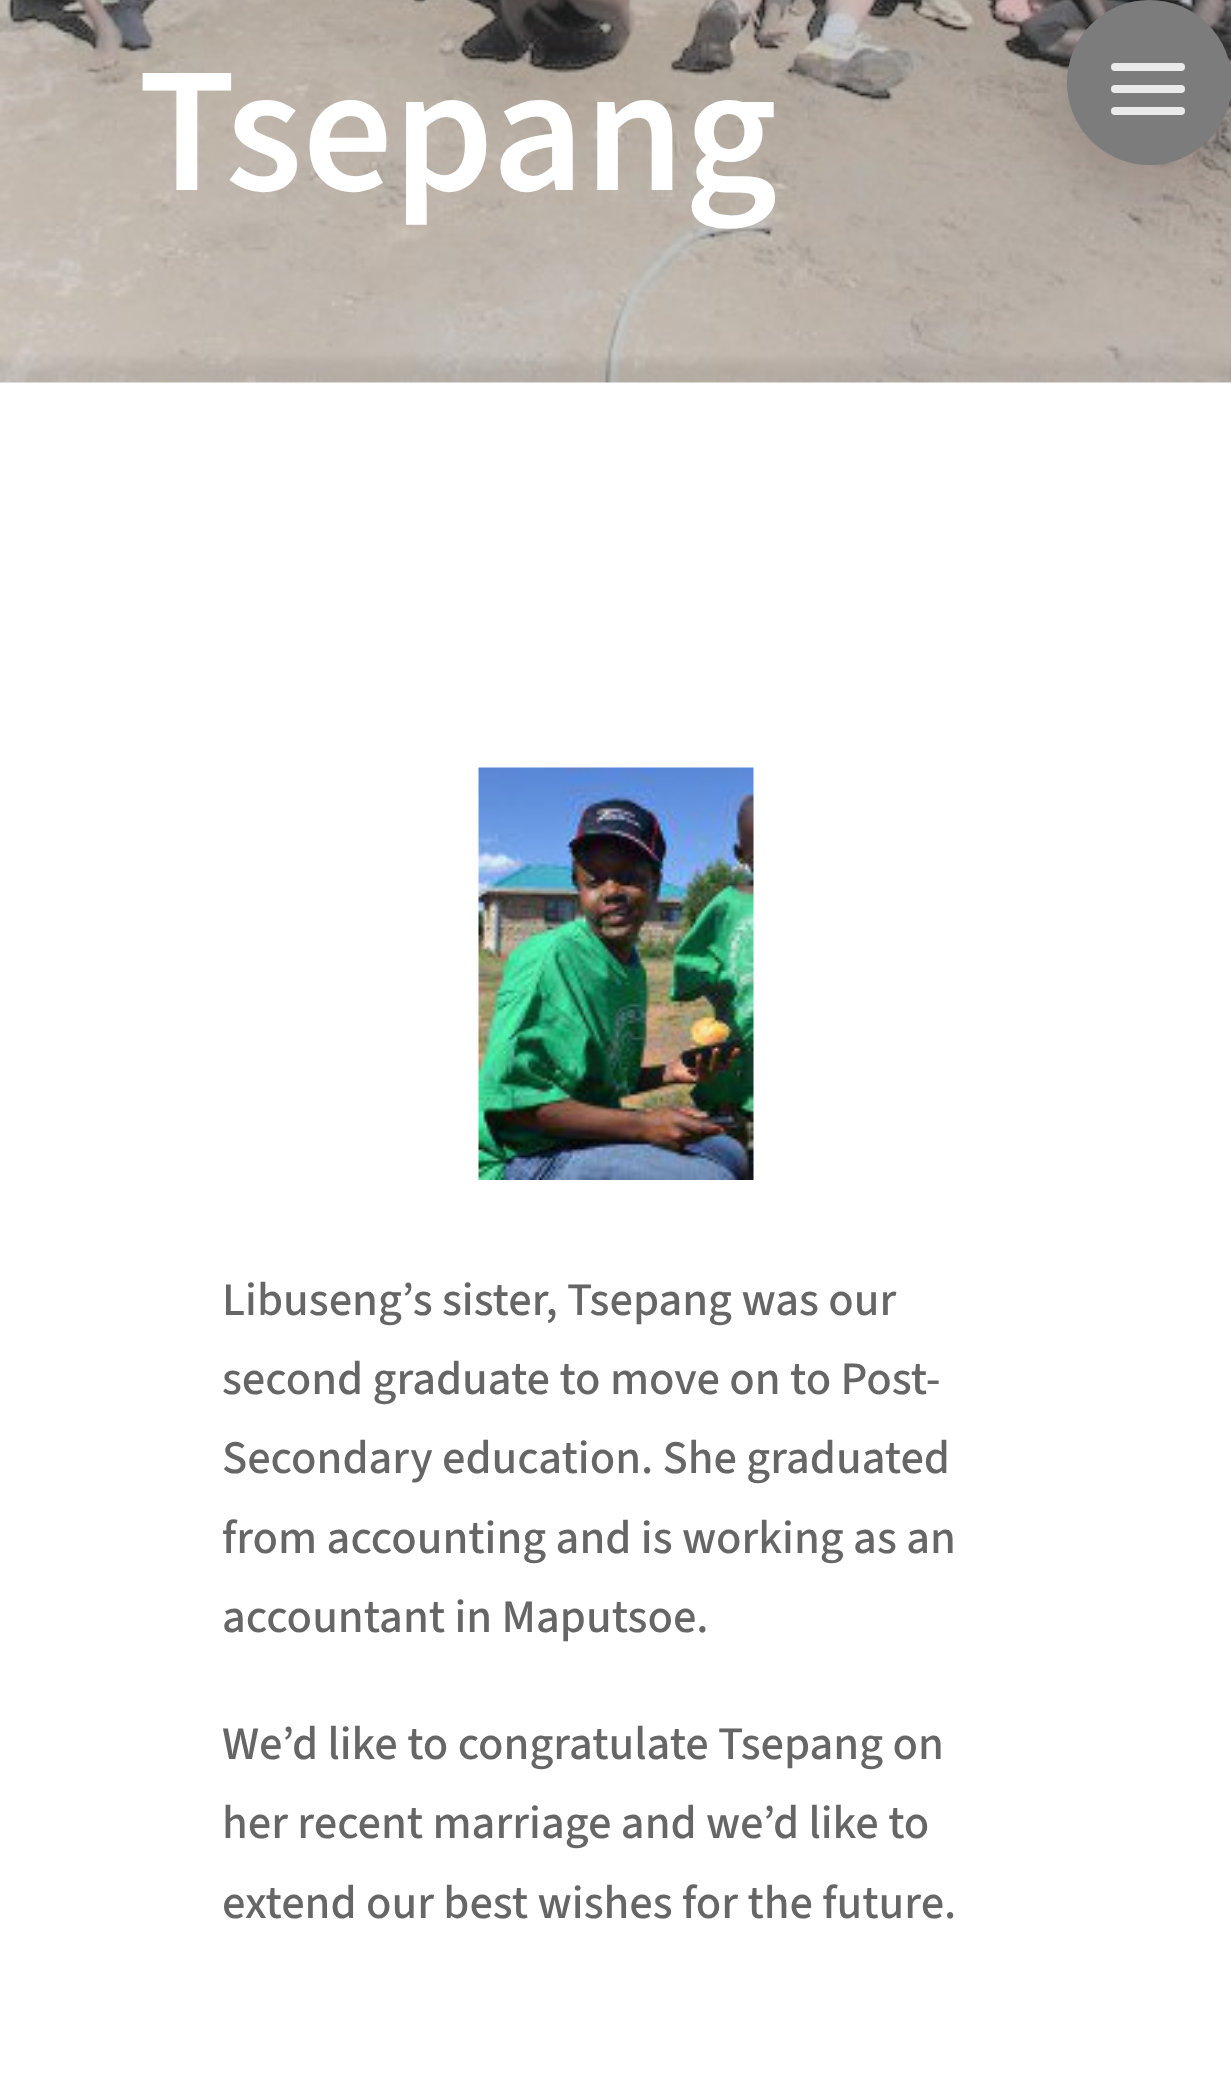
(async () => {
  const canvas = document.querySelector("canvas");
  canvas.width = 1231;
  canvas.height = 2094;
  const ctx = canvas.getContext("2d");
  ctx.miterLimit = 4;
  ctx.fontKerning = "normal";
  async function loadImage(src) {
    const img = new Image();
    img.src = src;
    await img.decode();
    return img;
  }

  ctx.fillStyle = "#ffffff";
  ctx.fillRect(0, 0, 1231, 2094);
  ctx.drawImage(await loadImage("img/1.png"), 0, 0, 1231, 383);
  ctx.fillStyle = "rgba(0, 0, 0, 0.2)";
  ctx.filter = "blur(41px)";
  ctx.beginPath();
  ctx.roundRect(1067, 17, 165, 165, 82.5);
  ctx.fill();
  ctx.filter = "none";
  ctx.fillStyle = "#7c7c7c";
  ctx.beginPath();
  ctx.arc(1149.5, 82.5, 82.5, 0, Math.PI * 2);
  ctx.fill();
  ctx.fillStyle = "#eaeaea";
  ctx.beginPath();
  ctx.roundRect(1111, 85, 74, 8, 4);
  ctx.fill();
  ctx.beginPath();
  ctx.roundRect(1111, 63, 74, 8, 4);
  ctx.fill();
  ctx.beginPath();
  ctx.roundRect(1111, 107, 74, 8, 4);
  ctx.fill();
  ctx.drawImage(await loadImage("img/2.png"), 478, 767, 276, 413);
  ctx.font = "600 179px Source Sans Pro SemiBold";
  ctx.fillStyle = "#ffffff";
  ctx.fillText("Tsepang", 138, 190);
  ctx.font = "200 46.75px 'Source Sans 3'";
  ctx.fillStyle = "#666666";
  for (const [text, x, y] of [
    ["Libuseng’s sister, Tsepang was our", 222, 1315],
    ["second graduate to move on to Post-", 222, 1394],
    ["Secondary education. She graduated", 222, 1473],
    ["from accounting and is working as an", 222, 1553],
    ["accountant in Maputsoe.", 222, 1632],
    ["We’d like to congratulate Tsepang on", 222, 1759],
    ["her recent marriage and we’d like to", 222, 1838],
    ["extend our best wishes for the future.", 222, 1918],
  ]) {
    ctx.fillText(text, x, y);
  }
})();
